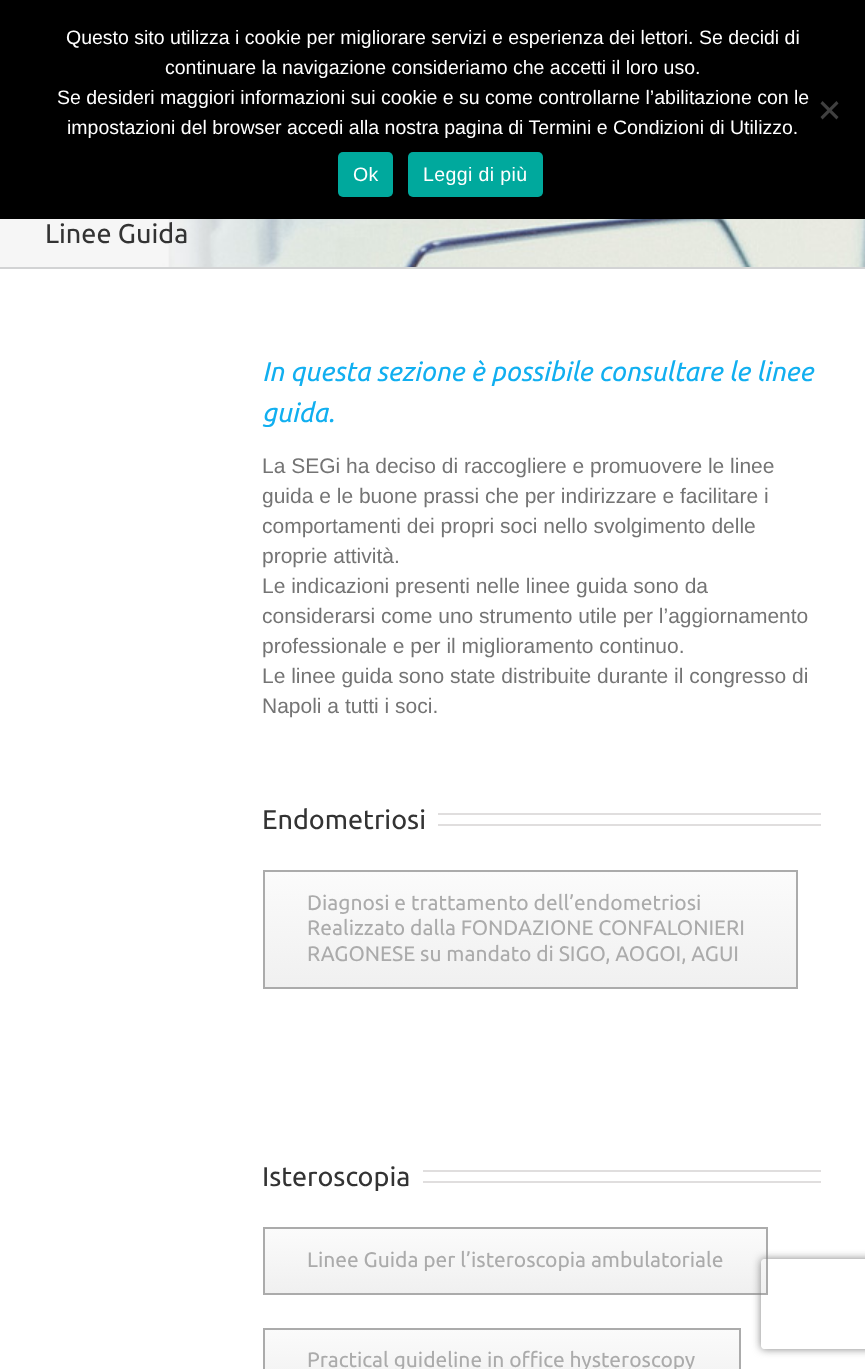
(async () => {
  const canvas = document.querySelector("canvas");
  canvas.width = 865;
  canvas.height = 1369;
  const ctx = canvas.getContext("2d");
  ctx.miterLimit = 4;
  ctx.fontKerning = "normal";
  async function loadImage(src) {
    const img = new Image();
    img.src = src;
    await img.decode();
    return img;
  }
  let gradient, path;

  ctx.fillStyle = "#ffffff";
  ctx.fillRect(0, 0, 865, 1369);
  ctx.fillStyle = "#000000";
  ctx.fillRect(0, 0, 865, 219);
  ctx.fillStyle = "#404040";
  path = new Path2D("M836.5 101L838.5 103.5L822.5 119.5L820.5 117Z");
  ctx.fill(path);
  path = new Path2D("M820.5 103.5L822.5 101L838.5 117L836.5 119.5Z");
  ctx.fill(path);
  ctx.fillStyle = "#00a99d";
  ctx.beginPath();
  ctx.roundRect(338, 152, 55, 45, 5);
  ctx.fill();
  ctx.beginPath();
  ctx.roundRect(408, 152, 135, 45, 5);
  ctx.fill();
  ctx.fillStyle = "#f6f6f6";
  ctx.fillRect(0, 219, 111, 48);
  ctx.drawImage(await loadImage("img/1.png"), 111, 219, 754, 48);
  for (const [x, y, w, h, color] of [
    [0, 267, 865, 2, "#d2d3d4"],
    [438, 813, 383, 2, "#e0dede"],
    [438, 824, 383, 2, "#e0dede"],
  ]) {
    ctx.fillStyle = color;
    ctx.fillRect(x, y, w, h);
  }
  gradient = ctx.createLinearGradient(530, 987, 530, 872);
  gradient.addColorStop(0, "#f0f0f0");
  gradient.addColorStop(1, "#fbfbfb");
  ctx.fillStyle = gradient;
  ctx.fillRect(265, 872, 531, 115);
  ctx.strokeStyle = "#ababab";
  ctx.lineWidth = 2;
  ctx.strokeRect(264, 871, 533, 117);
  ctx.fillStyle = "#e0dede";
  ctx.fillRect(423, 1170, 398, 2);
  ctx.fillRect(423, 1181, 398, 2);
  gradient = ctx.createLinearGradient(515, 1293, 515, 1229);
  gradient.addColorStop(0, "#f0f0f0");
  gradient.addColorStop(1, "#fbfbfb");
  ctx.fillStyle = gradient;
  ctx.fillRect(265, 1229, 501, 64);
  ctx.strokeRect(264, 1228, 503, 66);
  gradient = ctx.createLinearGradient(502, 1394, 502, 1329);
  gradient.addColorStop(0, "#f0f0f0");
  gradient.addColorStop(1, "#fbfbfb");
  ctx.fillStyle = gradient;
  ctx.fillRect(265, 1330, 474, 39);
  ctx.strokeRect(264, 1329, 476, 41);
  ctx.save();
  path = new Path2D("M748 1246H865V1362H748ZM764 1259H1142C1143.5 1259 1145 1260.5 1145 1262V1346C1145 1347.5 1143.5 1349 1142 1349H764C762.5 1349 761 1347.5 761 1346V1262C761 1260.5 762.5 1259 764 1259Z");
  ctx.clip(path, "evenodd");
  ctx.fillStyle = "#808080";
  ctx.filter = "blur(4px)";
  ctx.beginPath();
  ctx.roundRect(761, 1259, 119, 90, 3);
  ctx.fill();
  ctx.filter = "none";
  ctx.restore();
  ctx.font = "19.5px Liberation Sans";
  ctx.fillStyle = "#ffffff";
  for (const [text, x, y] of [
    ["Questo sito utilizza i cookie per migliorare servizi e esperienza dei lettori. Se decidi di", 66, 44],
    ["continuare la navigazione consideriamo che accetti il loro uso.", 165, 74],
    ["Se desideri maggiori informazioni sui cookie e su come controllarne l’abilitazione con le", 57, 104],
    ["impostazioni del browser accedi alla nostra pagina di Termini e Condizioni di Utilizzo.", 67, 134],
  ]) {
    ctx.fillText(text, x, y);
  }
  ctx.letterSpacing = "0.4px";
  ctx.fillText("Ok", 353, 181);
  ctx.fillText("Leggi di più", 423, 181);
  ctx.letterSpacing = "0px";
  ctx.font = "27px Ubuntu";
  ctx.fillStyle = "#333333";
  ctx.fillText("Linee Guida", 45, 243);
  ctx.font = "italic 27px Ubuntu";
  ctx.fillStyle = "#11aff0";
  ctx.fillText("In questa sezione è possibile consultare le linee", 262, 381);
  ctx.fillText("guida.", 262, 422);
  ctx.font = "21px Liberation Sans";
  ctx.fillStyle = "#747474";
  for (const [text, x, y] of [
    ["La SEGi ha deciso di raccogliere e promuovere le linee", 262, 473],
    ["guida e le buone prassi che per indirizzare e facilitare i", 262, 503],
    ["comportamenti dei propri soci nello svolgimento delle", 262, 533],
    ["proprie attività.", 262, 563],
    ["Le indicazioni presenti nelle linee guida sono da", 262, 593],
    ["considerarsi come uno strumento utile per l’aggiornamento", 262, 623],
    ["professionale e per il miglioramento continuo.", 262, 653],
    ["Le linee guida sono state distribuite durante il congresso di", 262, 683],
    ["Napoli a tutti i soci.", 262, 713],
  ]) {
    ctx.fillText(text, x, y);
  }
  ctx.font = "27px Ubuntu";
  ctx.fillStyle = "#333333";
  ctx.fillText("Endometriosi", 262, 829);
  ctx.font = "21px Ubuntu";
  ctx.fillStyle = "#ababab";
  for (const [text, x, y] of [
    ["Diagnosi e trattamento dell’endometriosi", 307, 910],
    ["Realizzato dalla FONDAZIONE CONFALONIERI", 307, 935],
    ["RAGONESE su mandato di SIGO, AOGOI, AGUI", 307, 961],
  ]) {
    ctx.fillText(text, x, y);
  }
  ctx.font = "27px Ubuntu";
  ctx.fillStyle = "#333333";
  ctx.fillText("Isteroscopia", 262, 1186);
  ctx.font = "21px Ubuntu";
  ctx.fillStyle = "#ababab";
  ctx.fillText("Linee Guida per l’isteroscopia ambulatoriale", 307, 1267);
  ctx.fillText("Practical guideline in office hysteroscopy", 307, 1367);
})();
